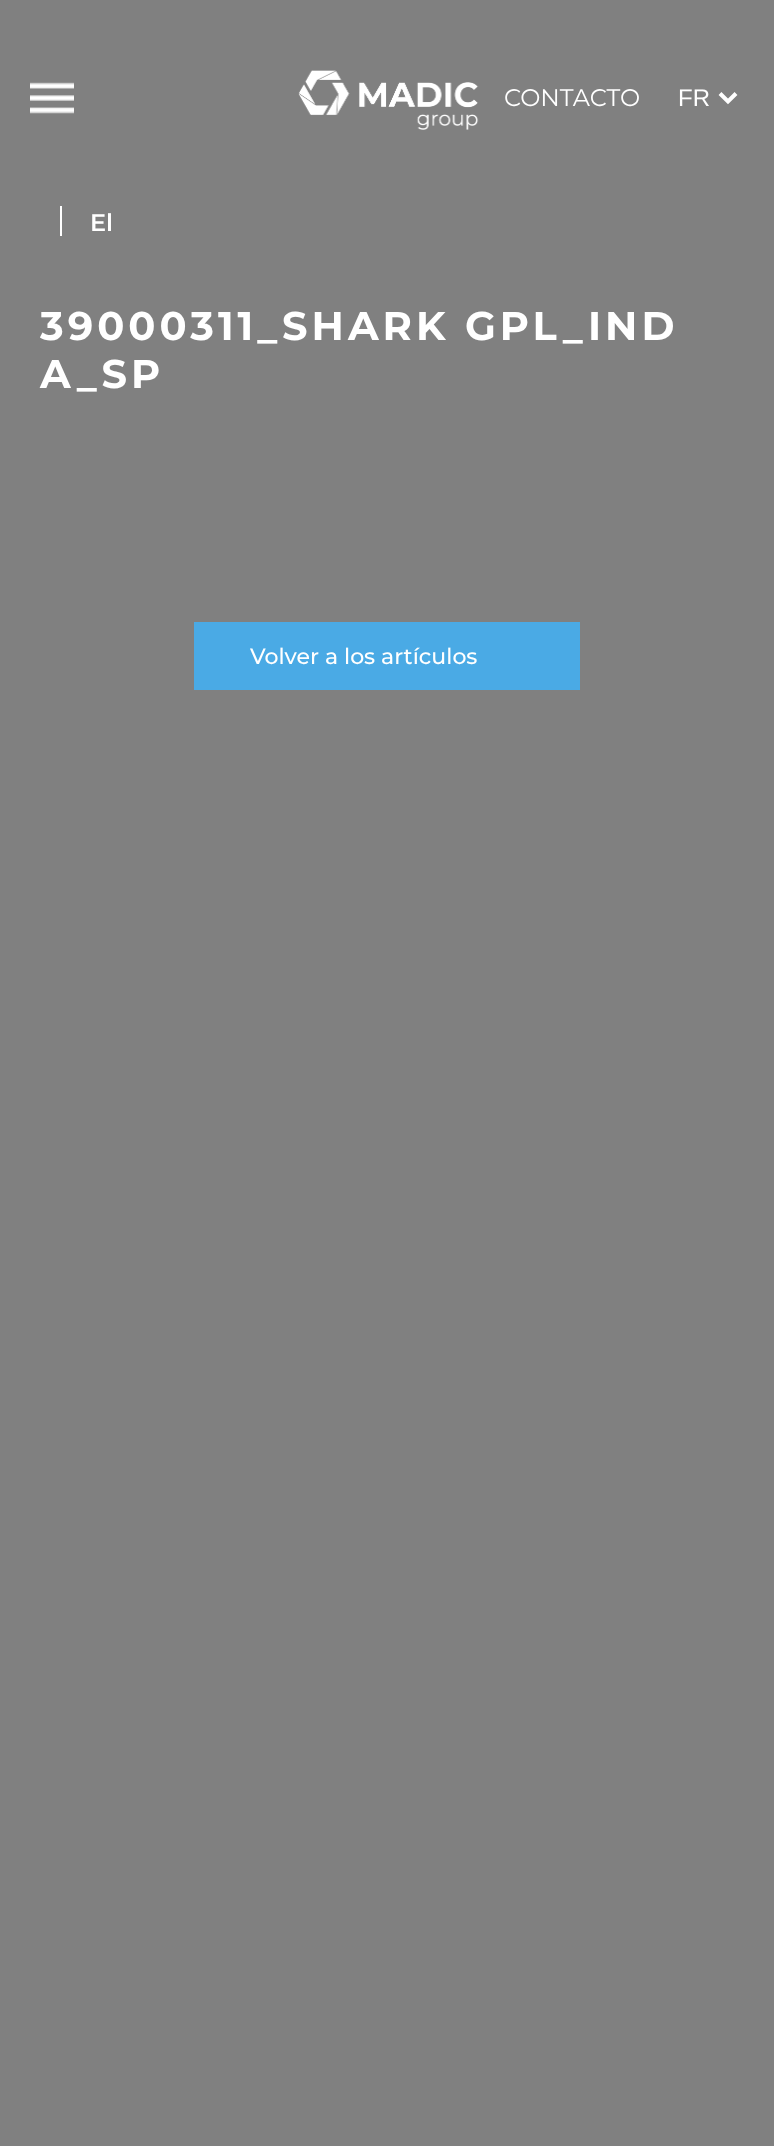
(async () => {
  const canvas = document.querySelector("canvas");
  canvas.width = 774;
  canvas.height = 2146;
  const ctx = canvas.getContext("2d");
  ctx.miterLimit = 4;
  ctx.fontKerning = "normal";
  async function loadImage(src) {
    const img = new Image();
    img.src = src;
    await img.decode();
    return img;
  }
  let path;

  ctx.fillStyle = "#808080";
  ctx.fillRect(0, 0, 774, 2146);
  ctx.drawImage(await loadImage("img/1.png"), 30, 82, 44, 32);
  ctx.drawImage(await loadImage("img/2.png"), 298, 70, 181, 60);
  path = new Path2D("M720 93.5L728 101.5L736 93.5");
  ctx.strokeStyle = "#ffffff";
  ctx.lineWidth = 4;
  ctx.stroke(path);
  ctx.fillStyle = "#ffffff";
  ctx.fillRect(60, 206, 2, 30);
  ctx.fillStyle = "#4aaae5";
  ctx.fillRect(194, 622, 386, 68);
  ctx.font = "24px Montserrat";
  ctx.fillStyle = "#ffffff";
  ctx.fillText("CONTACTO", 504, 106);
  ctx.font = "24px Liberation Sans";
  ctx.fillText("FR", 678, 106);
  ctx.font = "600 24px Montserrat";
  ctx.fillText("El", 90, 231);
  ctx.letterSpacing = "4px";
  ctx.font = "bold 40px Montserrat";
  ctx.fillText("39000311_SHARK GPL_IND", 40, 340);
  ctx.fillText("A_SP", 40, 388);
  ctx.letterSpacing = "0px";
  ctx.font = "500 22px Montserrat";
  ctx.fillText("Volver a los artículos", 250, 664);
})();
